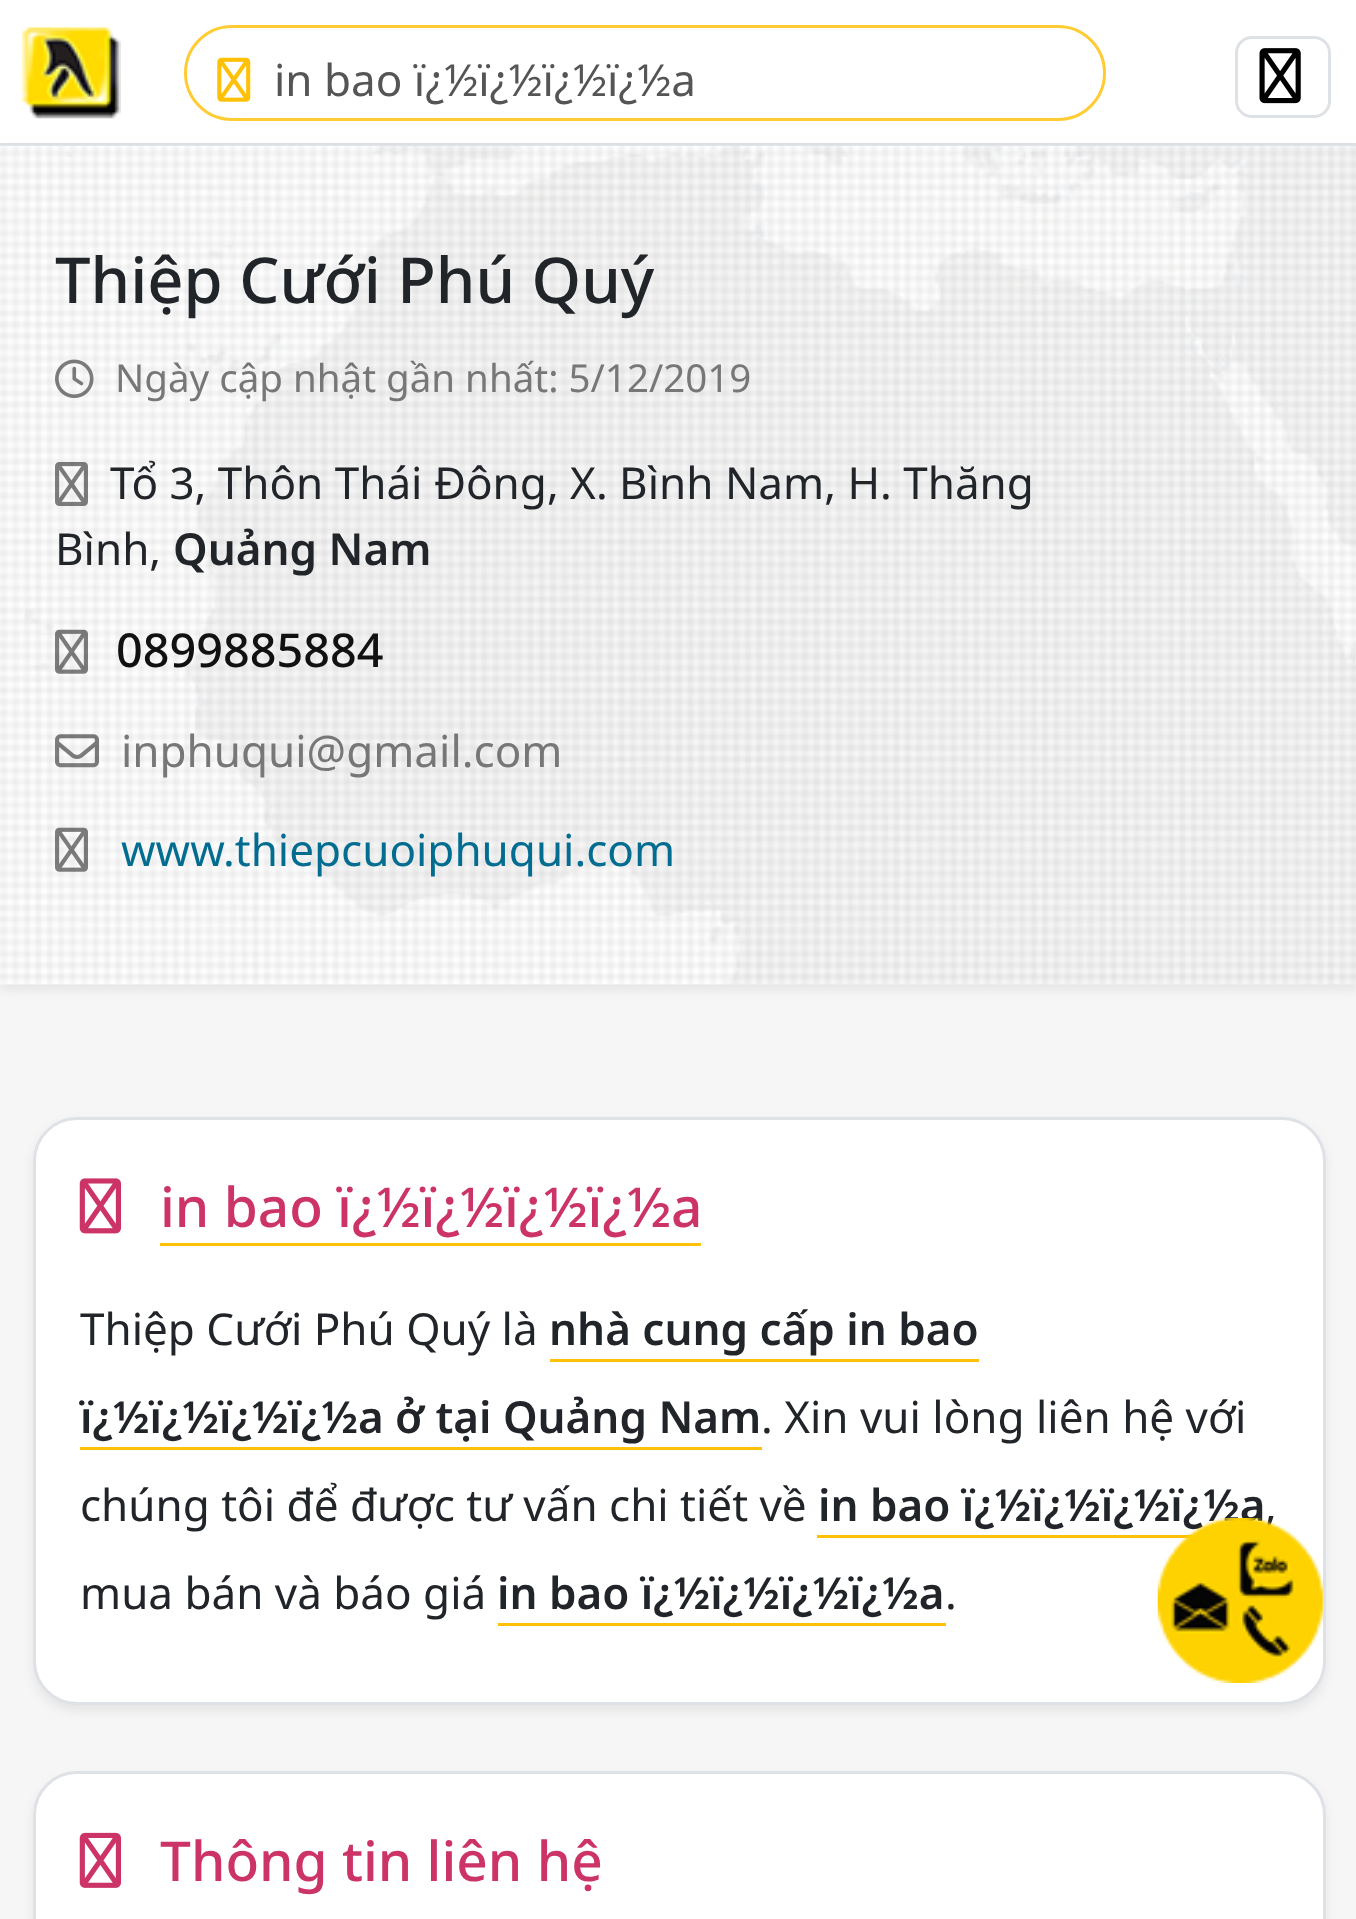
(async () => {
  const canvas = document.querySelector("canvas");
  canvas.width = 1356;
  canvas.height = 1919;
  const ctx = canvas.getContext("2d");
  ctx.miterLimit = 4;
  ctx.fontKerning = "normal";
  async function loadImage(src) {
    const img = new Image();
    img.src = src;
    await img.decode();
    return img;
  }

  ctx.fillStyle = "#f6f6f6";
  ctx.fillRect(0, 0, 1356, 1919);
  ctx.fillStyle = "#ffffff";
  ctx.fillRect(0, 0, 1356, 143);
  ctx.fillStyle = "#dee2e6";
  ctx.fillRect(0, 143, 1356, 3);
  ctx.drawImage(await loadImage("img/1.png"), 22, 27, 99, 92);
  ctx.beginPath();
  ctx.roundRect(185.5, 26.5, 919, 93, 46.5);
  ctx.strokeStyle = "#ffcc33";
  ctx.lineWidth = 3;
  ctx.stroke();
  ctx.drawImage(await loadImage("img/2.png"), 217, 57, 34, 45);
  ctx.beginPath();
  ctx.roundRect(1236.5, 37.5, 93, 79, 15.5);
  ctx.strokeStyle = "#dee2e6";
  ctx.stroke();
  ctx.drawImage(await loadImage("img/3.png"), 1259, 48, 42, 56);
  ctx.fillStyle = "rgba(0, 0, 0, 0.07)";
  ctx.filter = "blur(5.5px)";
  ctx.beginPath();
  ctx.rect(0, 151, 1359, 839);
  ctx.fill();
  ctx.filter = "none";
  ctx.drawImage(await loadImage("img/4.png"), 0, 145, 1356, 840);
  ctx.drawImage(await loadImage("img/5.png"), 55, 359, 39, 40);
  ctx.drawImage(await loadImage("img/6.png"), 55, 462, 33, 44);
  ctx.drawImage(await loadImage("img/7.png"), 55, 629, 33, 45);
  ctx.drawImage(await loadImage("img/8.png"), 55, 734, 44, 34);
  ctx.drawImage(await loadImage("img/9.png"), 55, 827, 33, 45);
  ctx.filter = "blur(5.5px)";
  ctx.beginPath();
  ctx.roundRect(33, 1122, 1293, 589, 44);
  ctx.fill();
  ctx.filter = "none";
  ctx.fillStyle = "#ffffff";
  ctx.beginPath();
  ctx.roundRect(34.5, 1118.5, 1290, 585, 42.5);
  ctx.fill();
  ctx.stroke();
  ctx.drawImage(await loadImage("img/10.png"), 79, 1178, 42, 56);
  for (const [x, y, w, h, color] of [
    [160, 1243, 541, 3, "#ffc107"],
    [550, 1359, 429, 3, "#ffc107"],
    [80, 1447, 682, 3, "#ffc107"],
    [817, 1535, 380, 3, "#ffc107"],
    [498, 1623, 448, 3, "#ffc107"],
  ]) {
    ctx.fillStyle = color;
    ctx.fillRect(x, y, w, h);
  }
  ctx.fillStyle = "rgba(0, 0, 0, 0.07)";
  ctx.filter = "blur(5.5px)";
  ctx.beginPath();
  ctx.roundRect(33, 1777, 1293, 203, 44);
  ctx.fill();
  ctx.filter = "none";
  ctx.fillStyle = "#ffffff";
  ctx.beginPath();
  ctx.roundRect(34.5, 1772.5, 1290, 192, 42.5);
  ctx.fill();
  ctx.stroke();
  ctx.drawImage(await loadImage("img/11.png"), 79, 1832, 42, 56);
  ctx.font = "44px Noto Sans";
  ctx.fillStyle = "#555555";
  ctx.fillText("in bao ï¿½ï¿½ï¿½ï¿½a", 274, 96);
  ctx.font = "500 63.25px Noto Sans";
  ctx.fillStyle = "#212529";
  ctx.fillText("Thiệp Cưới Phú Quý", 55, 303);
  ctx.font = "38.5px Noto Sans";
  ctx.fillStyle = "#777777";
  ctx.fillText("Ngày cập nhật gần nhất: 5/12/2019", 115, 392);
  ctx.font = "44px Noto Sans";
  ctx.fillStyle = "#212529";
  ctx.fillText("Tổ 3, Thôn Thái Đông, X. Bình Nam, H. Thăng", 110, 499);
  ctx.fillText("Bình,", 55, 565);
  ctx.font = "600 44px Noto Sans";
  ctx.fillText("Quảng Nam", 173, 565);
  ctx.font = "500 46.75px Noto Sans";
  ctx.fillStyle = "#111111";
  ctx.fillText("0899885884", 116, 667);
  ctx.font = "44px Noto Sans";
  ctx.fillStyle = "#777777";
  ctx.fillText("inphuqui@gmail.com", 121, 767);
  ctx.fillStyle = "#026d90";
  ctx.fillText("www.thiepcuoiphuqui.com", 121, 866);
  ctx.font = "500 55px Noto Sans";
  ctx.fillStyle = "#cc3366";
  ctx.fillText("in bao ï¿½ï¿½ï¿½ï¿½a", 160, 1227);
  ctx.font = "44px Noto Sans";
  ctx.fillStyle = "#212529";
  ctx.fillText("Thiệp Cưới Phú Quý là", 80, 1345);
  ctx.font = "600 44px Noto Sans";
  ctx.fillText("nhà cung cấp in bao", 549, 1345);
  ctx.fillText("ï¿½ï¿½ï¿½ï¿½a ở tại Quảng Nam", 80, 1433);
  ctx.font = "44px Noto Sans";
  ctx.fillText(". Xin vui lòng liên hệ với", 761, 1433);
  ctx.fillText("chúng tôi để được tư vấn chi tiết về", 80, 1521);
  ctx.font = "600 44px Noto Sans";
  ctx.fillText("in bao ï¿½ï¿½ï¿½ï¿½a", 818, 1521);
  ctx.font = "44px Noto Sans";
  ctx.fillText(",", 1265, 1521);
  ctx.fillText("mua bán và báo giá", 80, 1609);
  ctx.font = "600 44px Noto Sans";
  ctx.fillText("in bao ï¿½ï¿½ï¿½ï¿½a", 497, 1609);
  ctx.font = "44px Noto Sans";
  ctx.fillText(".", 945, 1609);
  ctx.font = "500 55px Noto Sans";
  ctx.fillStyle = "#cc3366";
  ctx.fillText("Thông tin liên hệ", 160, 1881);
  ctx.drawImage(await loadImage("img/12.png"), 1157, 1518, 166, 165);
})();
